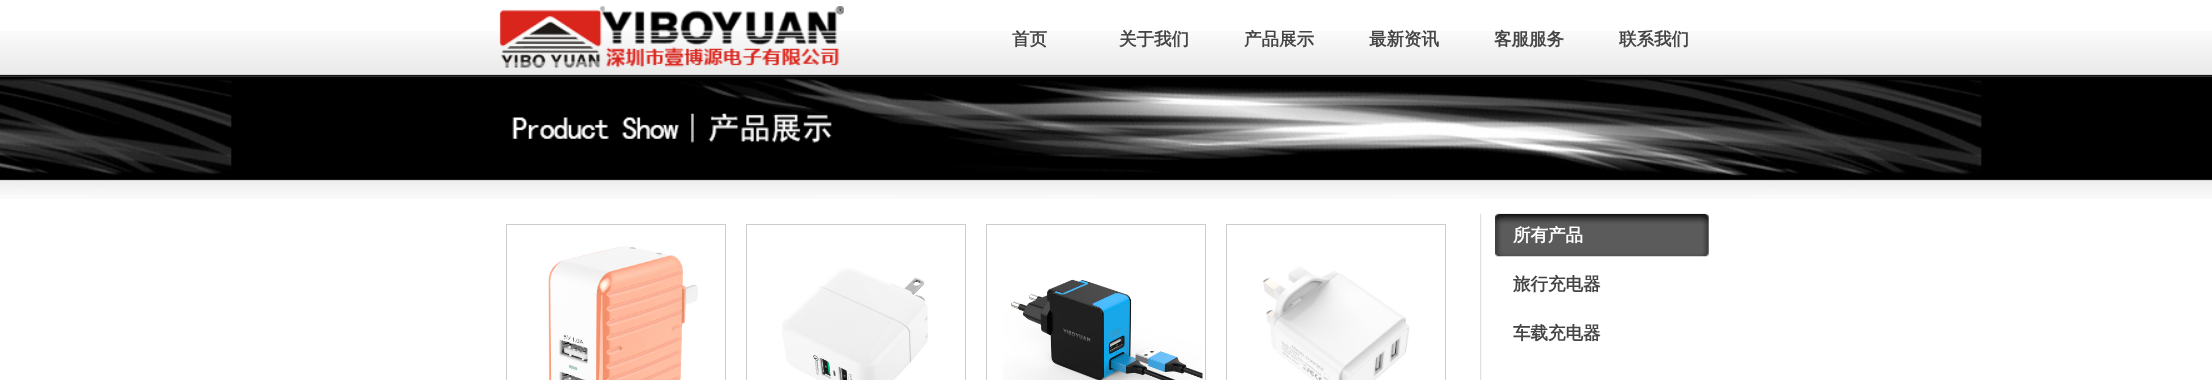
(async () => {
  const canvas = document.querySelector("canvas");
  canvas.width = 2212;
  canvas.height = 380;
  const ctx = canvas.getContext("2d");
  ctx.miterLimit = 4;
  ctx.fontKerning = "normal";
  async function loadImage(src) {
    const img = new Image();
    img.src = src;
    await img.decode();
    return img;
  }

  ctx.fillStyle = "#ffffff";
  ctx.fillRect(0, 0, 2212, 380);
  ctx.drawImage(await loadImage("img/1.png"), 0, 31, 2212, 46);
  ctx.drawImage(await loadImage("img/2.png"), 499, 6, 345, 62);
  ctx.drawImage(await loadImage("img/3.png"), 0, 76, 2212, 123);
  ctx.drawImage(await loadImage("img/4.png"), 512, 113, 320, 30);
  ctx.drawImage(await loadImage("img/5.png"), 1480, 213, 2, 167);
  ctx.strokeStyle = "#cccccc";
  ctx.strokeRect(506.5, 224.5, 219, 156);
  ctx.drawImage(await loadImage("img/6.png"), 548, 246, 150, 134);
  ctx.strokeRect(746.5, 224.5, 219, 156);
  ctx.drawImage(await loadImage("img/7.png"), 782, 268, 146, 112);
  ctx.strokeRect(986.5, 224.5, 219, 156);
  ctx.drawImage(await loadImage("img/8.png"), 1003, 279, 200, 101);
  ctx.strokeRect(1226.5, 224.5, 219, 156);
  ctx.drawImage(await loadImage("img/9.png"), 1263, 266, 147, 114);
  ctx.drawImage(await loadImage("img/10.png"), 1495, 213, 214, 44);
  ctx.font = "bold 17.5px WenQuanYi Zen Hei";
  ctx.fillStyle = "#444444";
  for (const [text, x, y] of [
    ["首页", 1012, 45],
    ["关于我们", 1119, 45],
    ["产品展示", 1244, 45],
    ["最新资讯", 1369, 45],
    ["客服服务", 1494, 45],
    ["联系我们", 1619, 45],
  ]) {
    ctx.fillText(text, x, y);
  }
  ctx.fillStyle = "#ffffff";
  ctx.fillText("所有产品", 1513, 241);
  ctx.fillStyle = "#444444";
  ctx.fillText("旅行充电器", 1513, 290);
  ctx.fillText("车载充电器", 1513, 339);
})();
